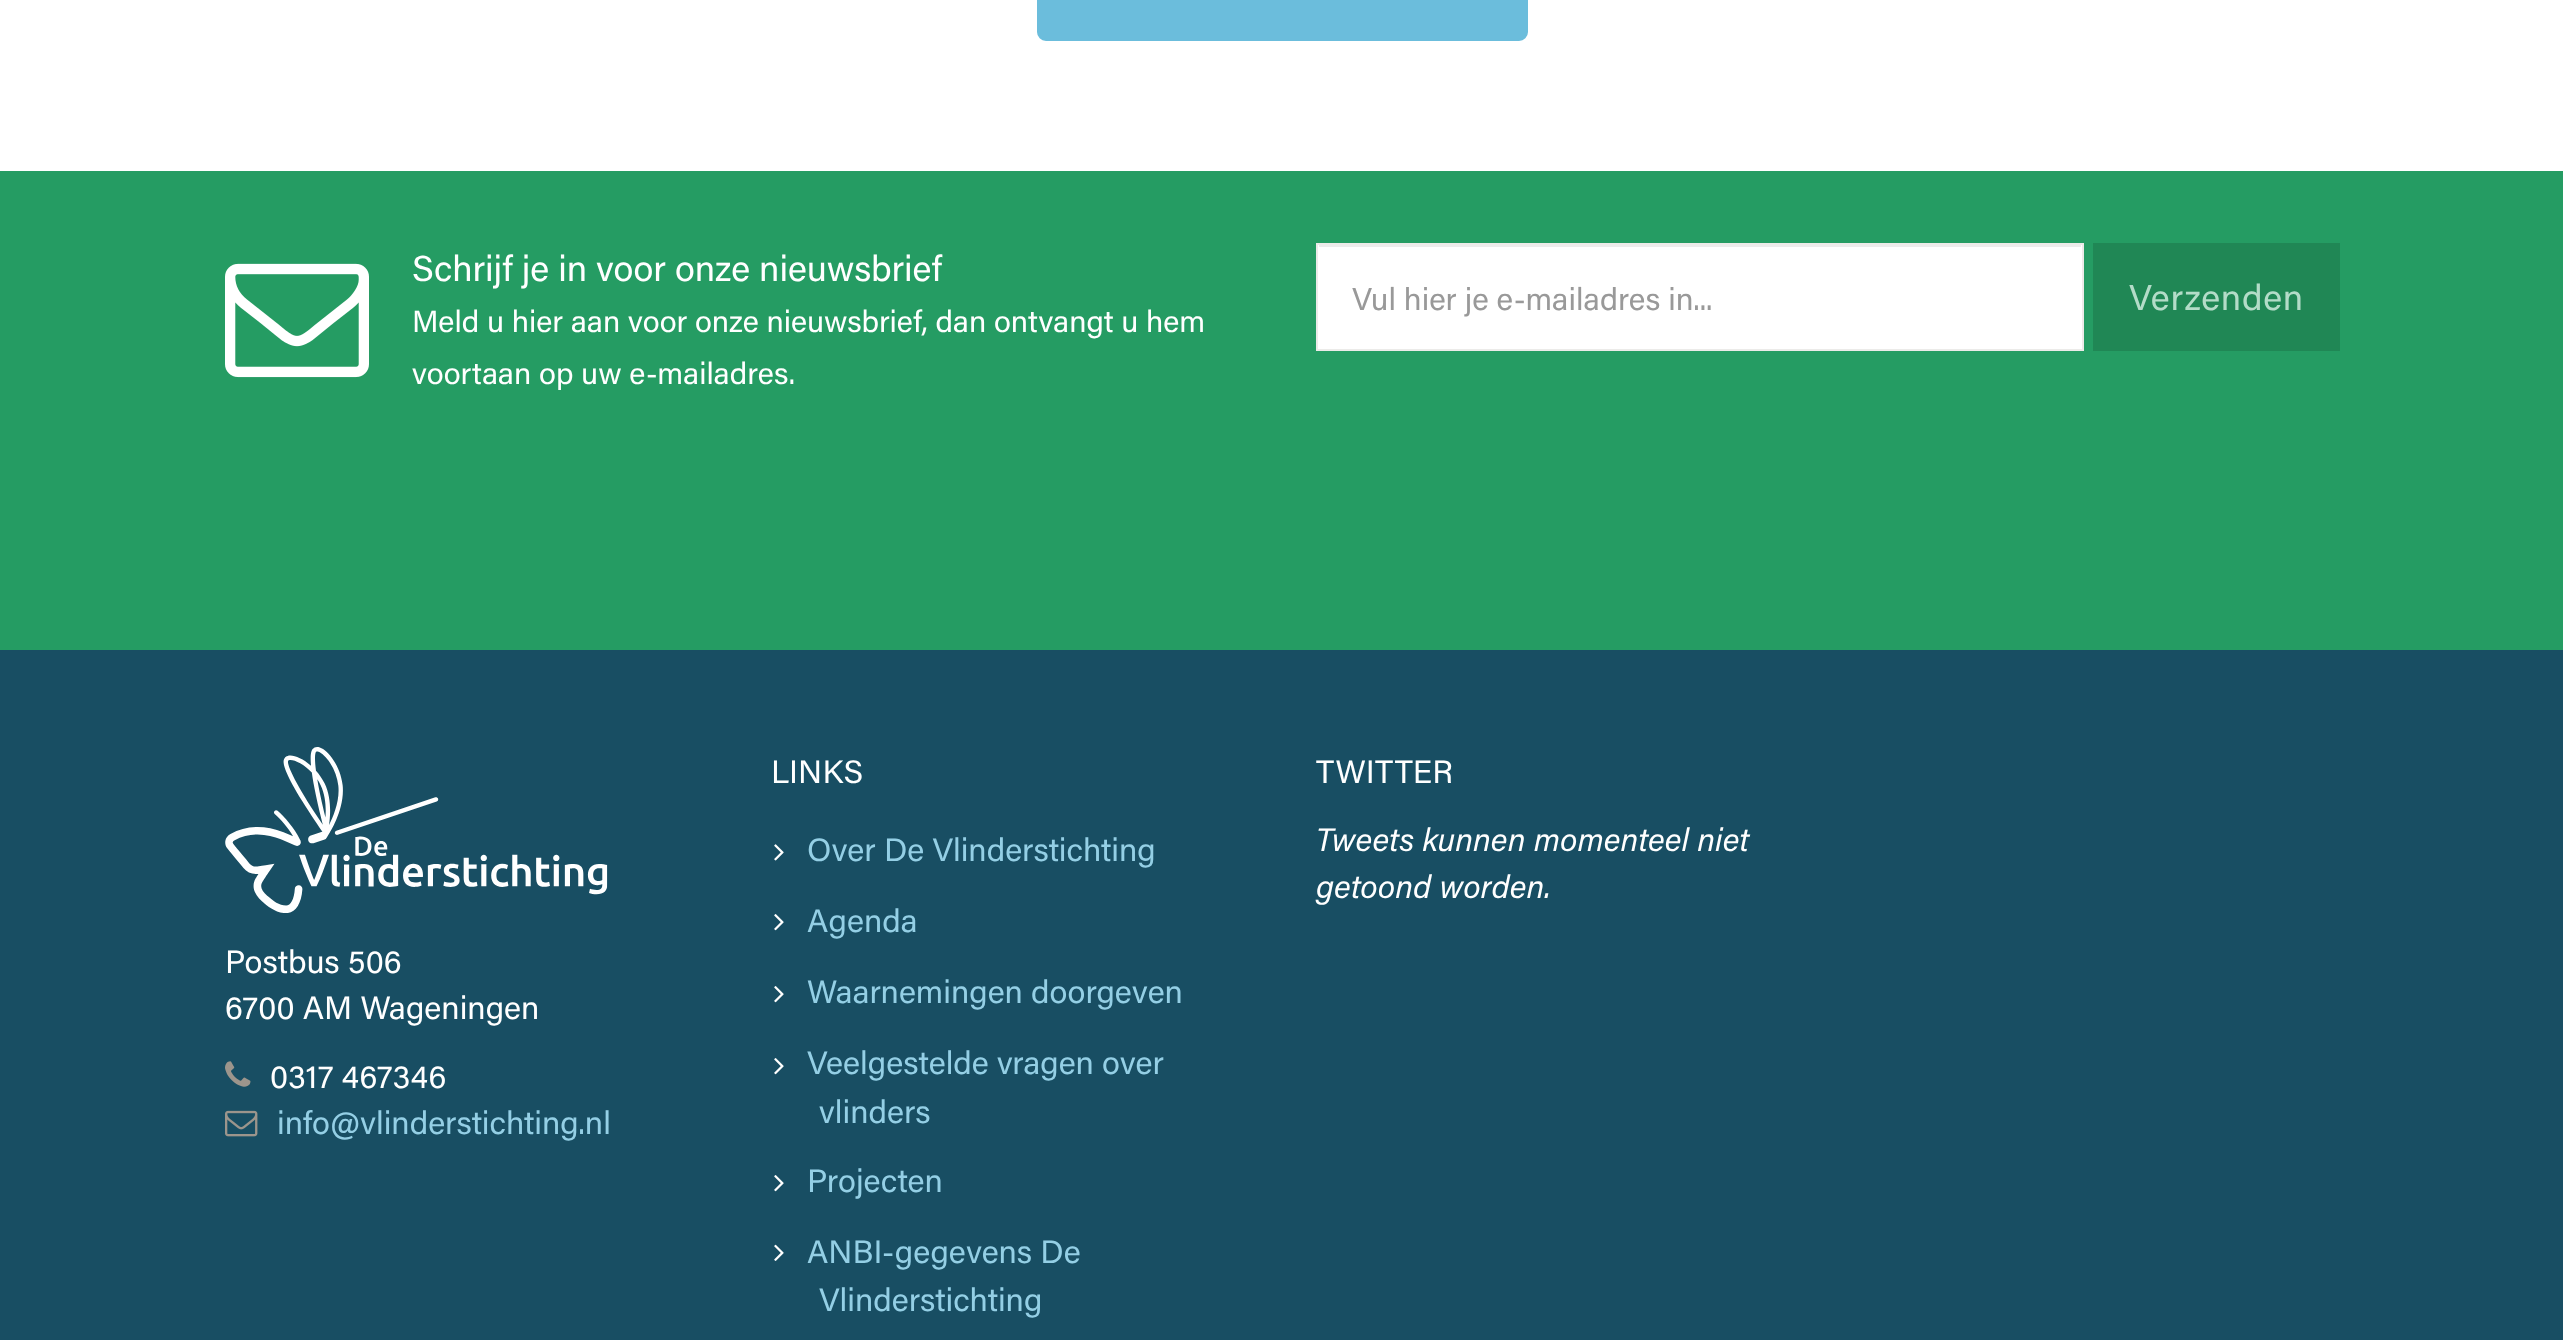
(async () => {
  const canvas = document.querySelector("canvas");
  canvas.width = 2563;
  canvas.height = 1340;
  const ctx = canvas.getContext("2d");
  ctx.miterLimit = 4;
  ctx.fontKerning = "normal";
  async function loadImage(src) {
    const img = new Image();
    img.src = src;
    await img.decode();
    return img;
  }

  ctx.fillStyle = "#ffffff";
  ctx.fillRect(0, 0, 2563, 1340);
  ctx.fillStyle = "#6bbddc";
  ctx.beginPath();
  ctx.roundRect(1038, -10, 489, 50, 8);
  ctx.fill();
  ctx.strokeStyle = "#6bbddc";
  ctx.lineWidth = 2;
  ctx.stroke();
  ctx.fillStyle = "#259c63";
  ctx.fillRect(0, 171, 2563, 479);
  ctx.drawImage(await loadImage("img/1.png"), 225, 263, 144, 115);
  ctx.fillStyle = "#ffffff";
  ctx.fillRect(1318, 245, 764, 104);
  ctx.fillStyle = "#ececec";
  ctx.fillRect(1319, 245, 762, 2);
  ctx.strokeStyle = "#ecebe9";
  ctx.strokeRect(1317, 244, 766, 106);
  ctx.fillStyle = "#208755";
  ctx.fillRect(2093, 243, 247, 108);
  ctx.fillStyle = "#184e63";
  ctx.fillRect(0, 650, 2563, 690);
  ctx.drawImage(await loadImage("img/2.png"), 774, 844, 10, 17);
  ctx.drawImage(await loadImage("img/3.png"), 774, 914, 10, 17);
  ctx.drawImage(await loadImage("img/3.png"), 774, 986, 10, 17);
  ctx.drawImage(await loadImage("img/3.png"), 774, 1058, 10, 17);
  ctx.drawImage(await loadImage("img/3.png"), 774, 1175, 10, 17);
  ctx.drawImage(await loadImage("img/4.png"), 774, 1244, 10, 17);
  ctx.drawImage(await loadImage("img/5.png"), 225, 747, 383, 166);
  ctx.drawImage(await loadImage("img/6.png"), 225, 1061, 26, 26);
  ctx.drawImage(await loadImage("img/7.png"), 225, 1110, 33, 27);
  ctx.font = "36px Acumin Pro";
  ctx.fillStyle = "#ffffff";
  ctx.fillText("Schrijf je in voor onze nieuwsbrief", 412, 281);
  ctx.font = "30.6px Acumin Pro";
  ctx.fillText("Meld u hier aan voor onze nieuwsbrief, dan ontvangt u hem", 412, 332);
  ctx.fillText("voortaan op uw e-mailadres.", 412, 384);
  ctx.font = "31.5px Acumin Pro";
  ctx.fillStyle = "#999999";
  ctx.fillText("Vul hier je e-mailadres in...", 1352, 310);
  ctx.letterSpacing = "0.75px";
  ctx.font = "36px Acumin Pro";
  ctx.fillStyle = "#b3dcc8";
  ctx.fillText("Verzenden", 2129, 310);
  ctx.letterSpacing = "0px";
  ctx.font = "32.4px Acumin Pro";
  ctx.fillStyle = "#ffffff";
  ctx.fillText("LINKS", 771, 783);
  ctx.fillStyle = "#94cfe5";
  for (const [text, x, y] of [
    ["Over De Vlinderstichting", 807, 861],
    ["Agenda", 807, 932],
    ["Waarnemingen doorgeven", 807, 1003],
    ["Veelgestelde vragen over", 807, 1074],
    ["vlinders", 819, 1123],
    ["Projecten", 807, 1192],
    ["ANBI-gegevens De", 807, 1263],
    ["Vlinderstichting", 819, 1311],
  ]) {
    ctx.fillText(text, x, y);
  }
  ctx.fillStyle = "#ffffff";
  ctx.fillText("TWITTER", 1316, 783);
  ctx.font = "italic 32.4px Acumin Pro";
  ctx.fillText("Tweets kunnen momenteel niet", 1316, 851);
  ctx.fillText("getoond worden.", 1316, 898);
  ctx.font = "32.4px Acumin Pro";
  for (const [text, x, y] of [
    ["Postbus 506", 225, 973],
    ["6700 AM Wageningen", 225, 1019],
    ["0317 467346", 270, 1088],
  ]) {
    ctx.fillText(text, x, y);
  }
  ctx.fillStyle = "#94cfe5";
  ctx.fillText("info@vlinderstichting.nl", 277, 1134);
})();
